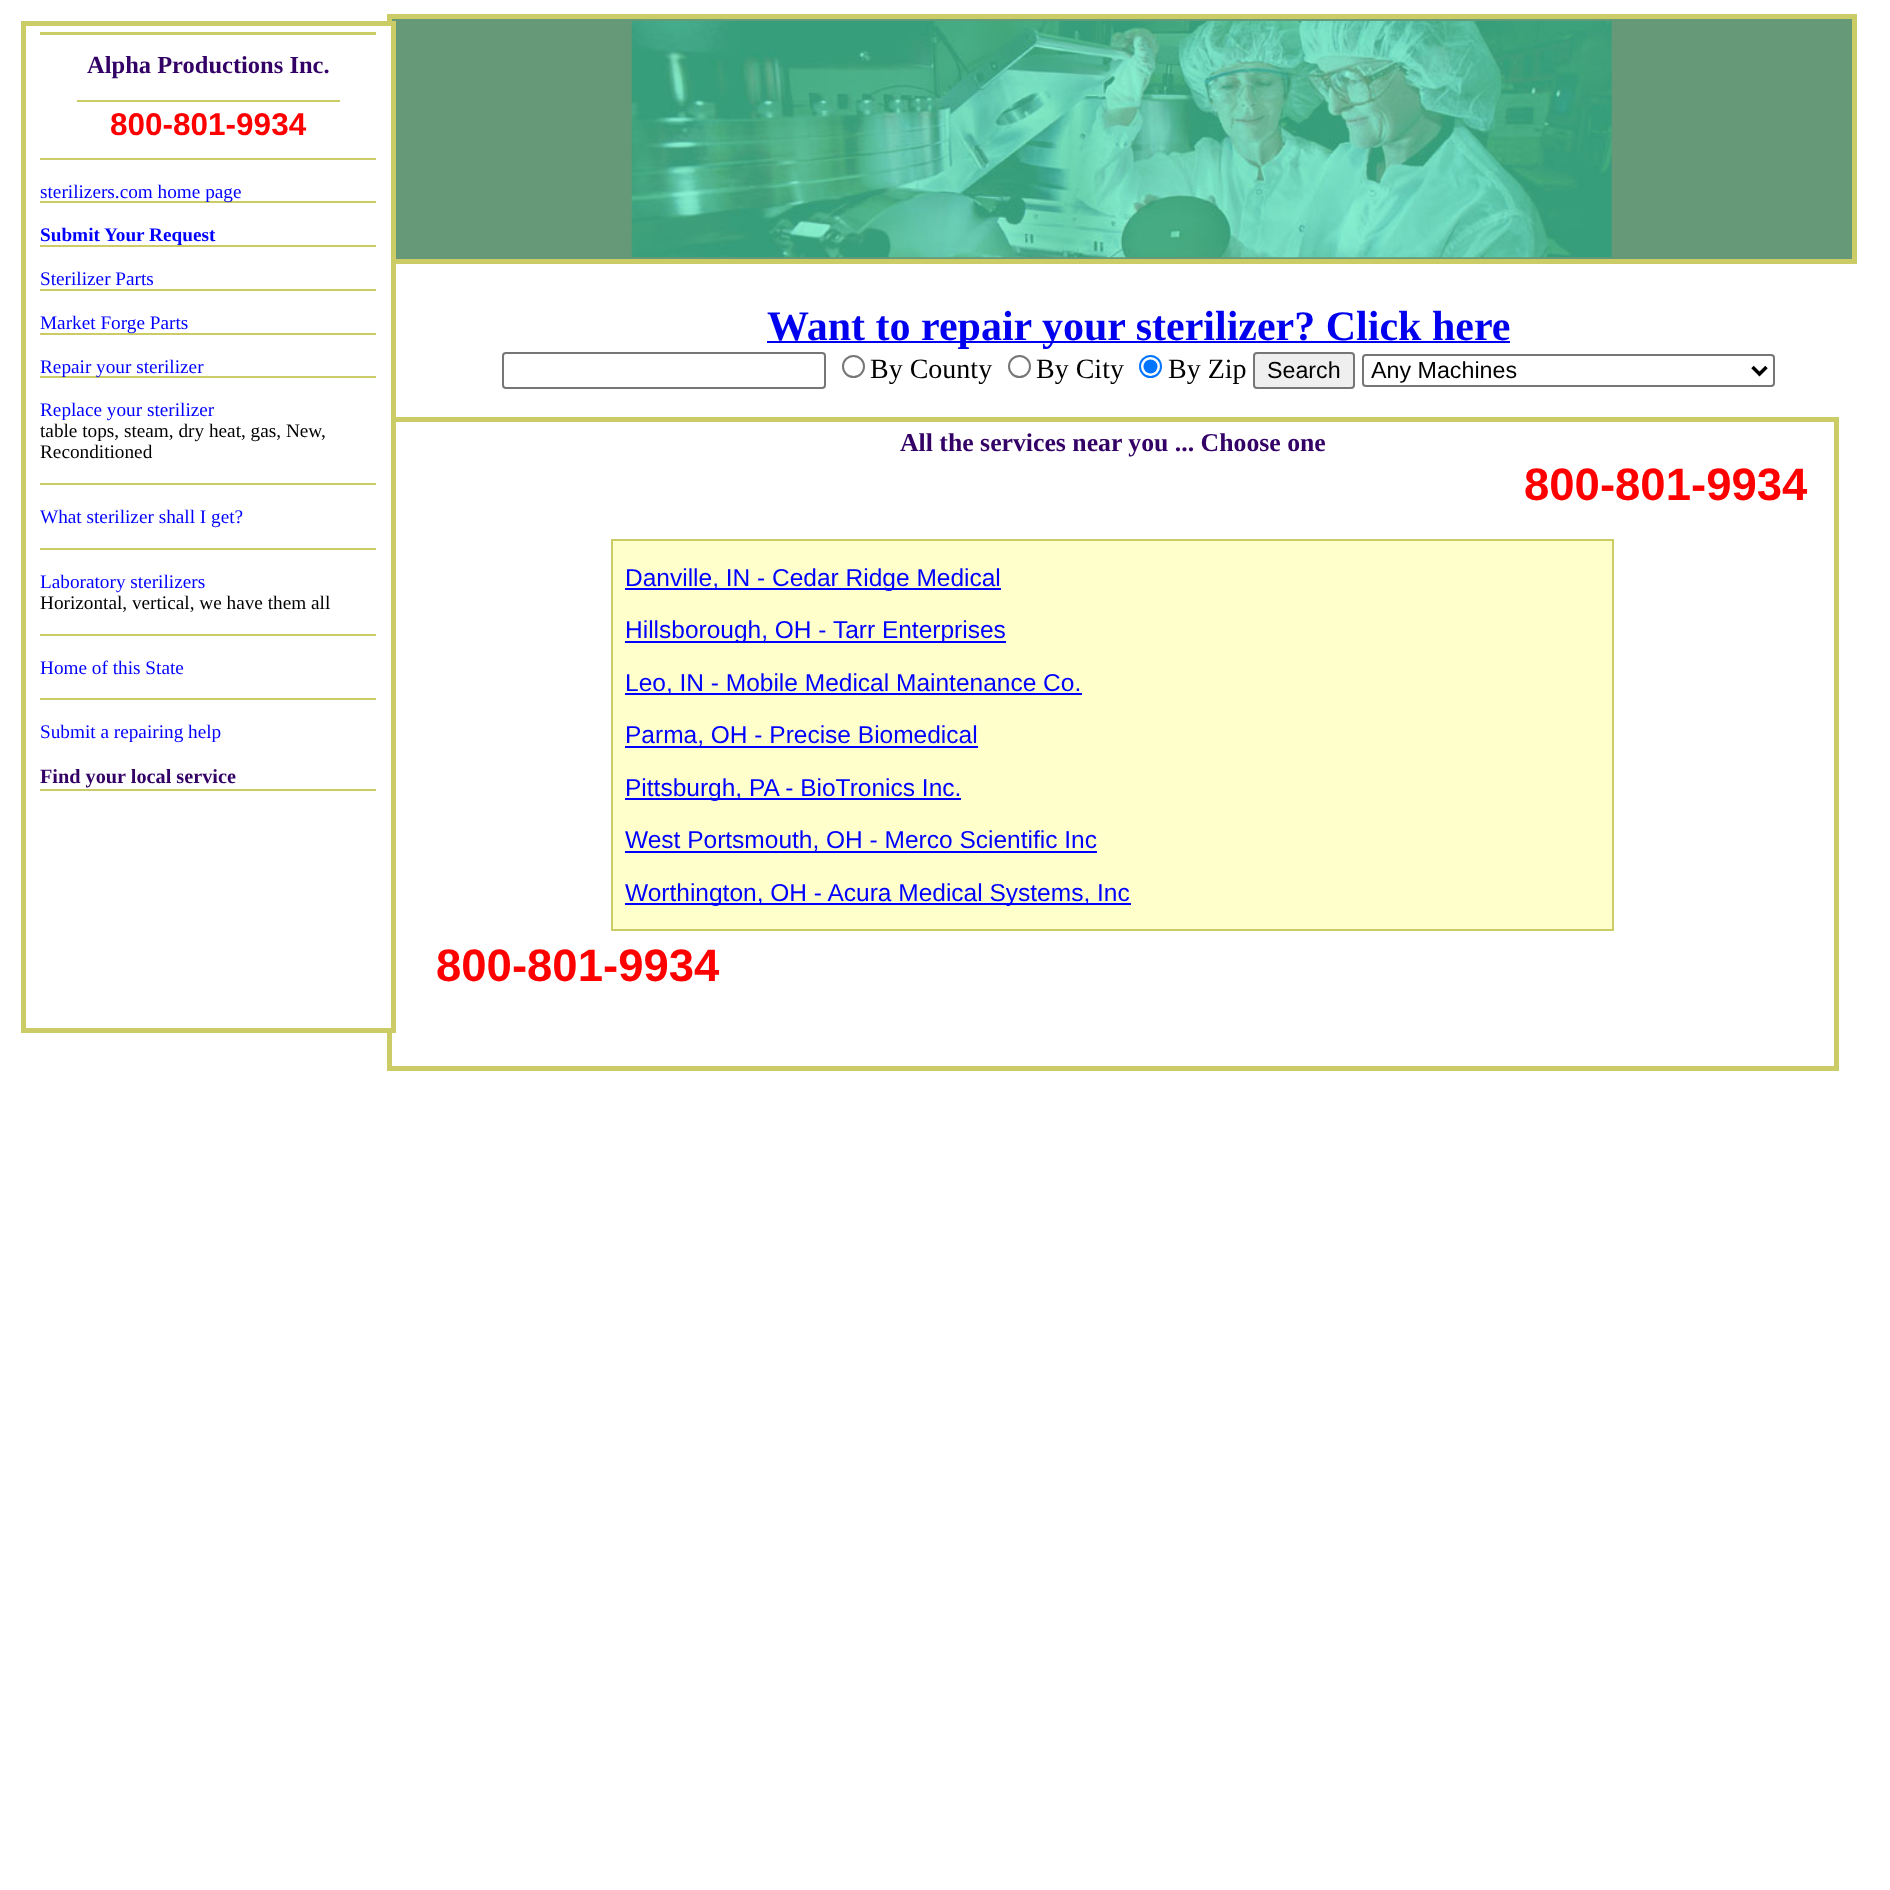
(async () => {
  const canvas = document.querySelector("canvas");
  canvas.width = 1890;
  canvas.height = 1890;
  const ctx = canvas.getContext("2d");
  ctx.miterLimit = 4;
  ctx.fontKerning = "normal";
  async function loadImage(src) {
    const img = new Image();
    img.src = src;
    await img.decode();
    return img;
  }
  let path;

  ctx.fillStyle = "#ffffff";
  ctx.fillRect(0, 0, 1890, 1890);
  ctx.fillStyle = "#669977";
  ctx.beginPath();
  ctx.rect(389.5, 16.5, 1465, 245);
  ctx.fill();
  ctx.strokeStyle = "#cccc66";
  ctx.lineWidth = 5;
  ctx.stroke();
  ctx.strokeRect(389.5, 419.5, 1447, 649);
  ctx.fillStyle = "#ffffff";
  ctx.fillRect(387, 26, 4, 1002);
  ctx.strokeRect(23.5, 23.5, 370, 1007);
  for (const [x, y, w, h, color] of [
    [40, 32, 336, 3, "#cccc66"],
    [77, 100, 263, 2, "#cccc66"],
    [40, 158, 336, 2, "#cccc66"],
    [40, 201, 336, 2, "#cccc66"],
    [40, 245, 336, 2, "#cccc66"],
    [40, 289, 336, 2, "#cccc66"],
    [40, 333, 336, 2, "#cccc66"],
    [40, 376, 336, 2, "#cccc66"],
    [40, 483, 336, 2, "#cccc66"],
    [40, 548, 336, 2, "#cccc66"],
    [40, 634, 336, 2, "#cccc66"],
    [40, 698, 336, 2, "#cccc66"],
    [40, 789, 336, 2, "#cccc66"],
  ]) {
    ctx.fillStyle = color;
    ctx.fillRect(x, y, w, h);
  }
  ctx.drawImage(await loadImage("img/1.png"), 631, 21, 981, 237);
  ctx.fillStyle = "#0000ee";
  ctx.fillRect(767, 341, 743, 2);
  ctx.beginPath();
  ctx.roundRect(503, 353, 322, 35, 3);
  ctx.strokeStyle = "#767676";
  ctx.lineWidth = 2;
  ctx.stroke();
  ctx.beginPath();
  ctx.arc(853.5, 366.5, 10.5, 0, Math.PI * 2);
  ctx.stroke();
  ctx.beginPath();
  ctx.arc(1019.5, 366.5, 10.5, 0, Math.PI * 2);
  ctx.stroke();
  ctx.beginPath();
  ctx.arc(1150.5, 366.5, 10.5, 0, Math.PI * 2);
  ctx.strokeStyle = "#0075ff";
  ctx.stroke();
  ctx.fillStyle = "#0075ff";
  ctx.beginPath();
  ctx.arc(1150.5, 366.5, 7, 0, Math.PI * 2);
  ctx.fill();
  ctx.fillStyle = "#efefef";
  ctx.beginPath();
  ctx.roundRect(1254, 353, 100, 35, 3);
  ctx.fill();
  ctx.strokeStyle = "#767676";
  ctx.stroke();
  ctx.beginPath();
  ctx.roundRect(1363, 355, 411, 31, 3);
  ctx.stroke();
  path = new Path2D("M1752.5 367L1759.5 374L1766.5 367");
  ctx.strokeStyle = "#000000";
  ctx.lineWidth = 3.5;
  ctx.stroke(path);
  ctx.fillStyle = "#ffffcc";
  ctx.beginPath();
  ctx.rect(612, 540, 1001, 390);
  ctx.fill();
  ctx.strokeStyle = "#cccc66";
  ctx.lineWidth = 2;
  ctx.stroke();
  for (const [x, y, w, h, color] of [
    [625, 588, 376, 2, "#0000ff"],
    [625, 641, 381, 2, "#0000ff"],
    [625, 693, 457, 2, "#0000ff"],
    [625, 746, 353, 2, "#0000ff"],
    [625, 798, 336, 2, "#0000ff"],
    [625, 851, 472, 2, "#0000ff"],
    [625, 903, 506, 2, "#0000ff"],
  ]) {
    ctx.fillStyle = color;
    ctx.fillRect(x, y, w, h);
  }
  ctx.font = "bold 24.5px Liberation Serif";
  ctx.fillStyle = "#330066";
  ctx.fillText("Alpha Productions Inc.", 87, 73);
  ctx.font = "bold 31.5px Liberation Sans";
  ctx.fillStyle = "#ff0000";
  ctx.fillText("800-801-9934", 110, 135);
  ctx.font = "19.25px Liberation Serif";
  ctx.fillStyle = "#0000ff";
  ctx.fillText("sterilizers.com home page", 40, 198);
  ctx.font = "bold 19.25px Liberation Serif";
  ctx.fillText("Submit Your Request", 40, 241);
  ctx.font = "19.25px Liberation Serif";
  for (const [text, x, y] of [
    ["Sterilizer Parts", 40, 285],
    ["Market Forge Parts", 40, 329],
    ["Repair your sterilizer", 40, 373],
    ["Replace your sterilizer", 40, 416],
  ]) {
    ctx.fillText(text, x, y);
  }
  ctx.fillStyle = "#000000";
  ctx.fillText("table tops, steam, dry heat, gas, New,", 40, 437);
  ctx.fillText("Reconditioned", 40, 458);
  ctx.fillStyle = "#0000ff";
  ctx.fillText("What sterilizer shall I get?", 40, 523);
  ctx.fillText("Laboratory sterilizers", 40, 588);
  ctx.fillStyle = "#000000";
  ctx.fillText("Horizontal, vertical, we have them all", 40, 609);
  ctx.fillStyle = "#0000ff";
  ctx.fillText("Home of this State", 40, 674);
  ctx.fillText("Submit a repairing help", 40, 738);
  ctx.font = "bold 20.25px Liberation Serif";
  ctx.fillStyle = "#330066";
  ctx.fillText("Find your local service", 40, 783);
  ctx.font = "bold 42px Liberation Serif";
  ctx.fillStyle = "#0000ee";
  ctx.fillText("Want to repair your sterilizer? Click here", 767, 340);
  ctx.font = "28px Liberation Serif";
  ctx.fillStyle = "#000000";
  for (const [text, x, y] of [
    ["By County", 870, 378],
    ["By City", 1036, 378],
    ["By Zip", 1168, 378],
  ]) {
    ctx.fillText(text, x, y);
  }
  ctx.font = "23.25px Liberation Sans";
  ctx.fillText("Search", 1267, 378);
  ctx.fillText("Any Machines", 1371, 378);
  ctx.font = "bold 25.75px Liberation Serif";
  ctx.fillStyle = "#330066";
  ctx.fillText("All the services near you ... Choose one", 900, 451);
  ctx.font = "bold 45.5px Liberation Sans";
  ctx.fillStyle = "#ff0000";
  ctx.fillText("800-801-9934", 1524, 500);
  ctx.font = "24.5px Liberation Sans";
  ctx.fillStyle = "#0000ff";
  for (const [text, x, y] of [
    ["Danville, IN - Cedar Ridge Medical", 625, 586],
    ["Hillsborough, OH - Tarr Enterprises", 625, 638],
    ["Leo, IN - Mobile Medical Maintenance Co.", 625, 691],
    ["Parma, OH - Precise Biomedical", 625, 743],
    ["Pittsburgh, PA - BioTronics Inc.", 625, 796],
    ["West Portsmouth, OH - Merco Scientific Inc", 625, 848],
    ["Worthington, OH - Acura Medical Systems, Inc", 625, 901],
  ]) {
    ctx.fillText(text, x, y);
  }
  ctx.font = "bold 45.5px Liberation Sans";
  ctx.fillStyle = "#ff0000";
  ctx.fillText("800-801-9934", 436, 981);
})();
